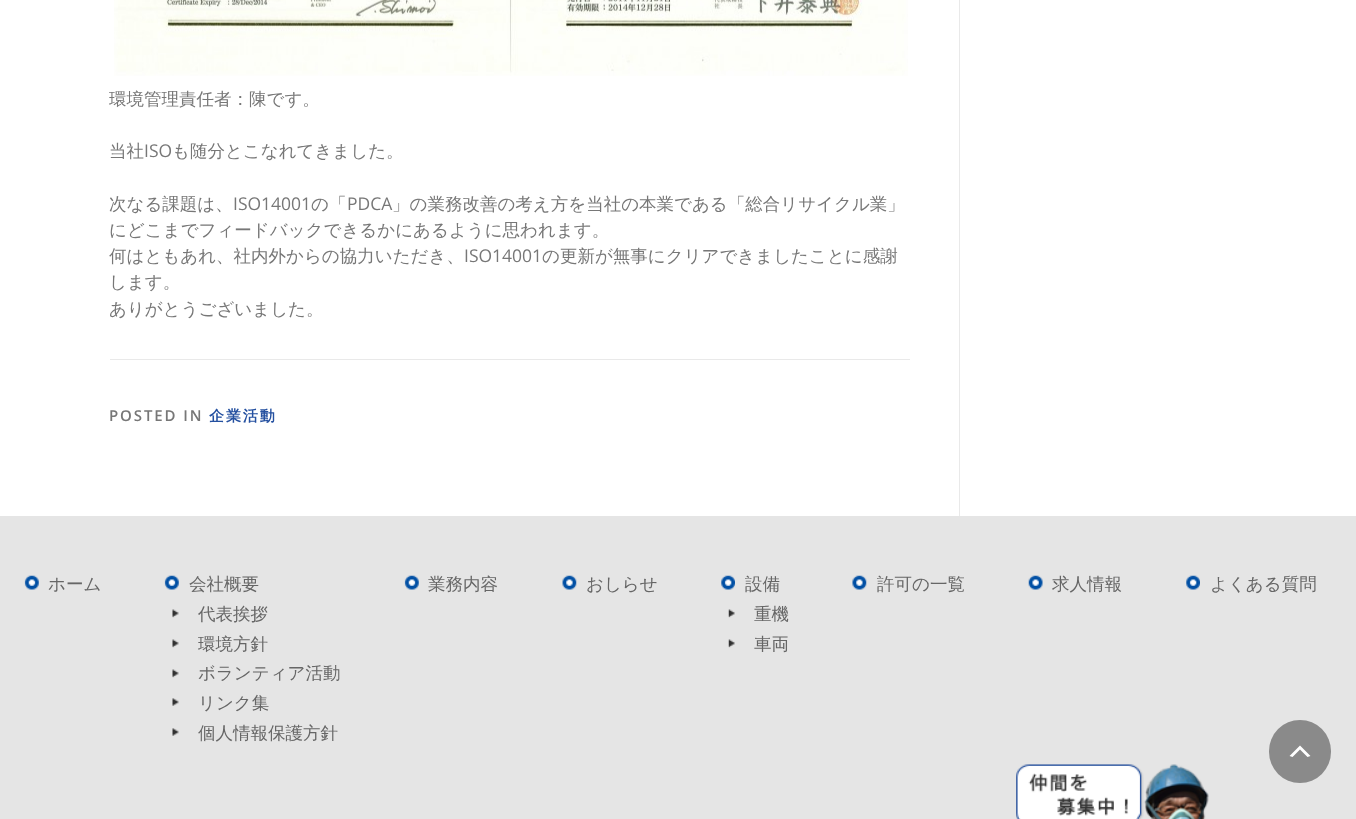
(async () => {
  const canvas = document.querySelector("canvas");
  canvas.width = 1356;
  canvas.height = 819;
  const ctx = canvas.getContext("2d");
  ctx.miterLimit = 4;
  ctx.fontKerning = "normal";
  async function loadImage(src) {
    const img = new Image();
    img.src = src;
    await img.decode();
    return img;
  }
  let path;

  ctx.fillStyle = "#ffffff";
  ctx.fillRect(0, 0, 1356, 819);
  ctx.fillStyle = "#e9e9e9";
  ctx.fillRect(959, 0, 1, 516);
  ctx.drawImage(await loadImage("img/1.png"), 114, 0, 794, 76);
  ctx.fillRect(110, 359, 800, 1);
  ctx.fillStyle = "#e5e5e5";
  ctx.fillRect(0, 516, 1356, 303);
  ctx.drawImage(await loadImage("img/2.png"), 24, 575, 15, 15);
  ctx.drawImage(await loadImage("img/2.png"), 164, 575, 15, 15);
  ctx.drawImage(await loadImage("img/3.png"), 172, 609, 7, 9);
  ctx.drawImage(await loadImage("img/3.png"), 172, 639, 7, 9);
  ctx.drawImage(await loadImage("img/3.png"), 172, 669, 7, 9);
  ctx.drawImage(await loadImage("img/4.png"), 172, 698, 7, 8);
  ctx.drawImage(await loadImage("img/4.png"), 172, 728, 7, 8);
  ctx.drawImage(await loadImage("img/5.png"), 404, 575, 15, 15);
  ctx.drawImage(await loadImage("img/6.png"), 562, 575, 15, 15);
  ctx.drawImage(await loadImage("img/7.png"), 721, 575, 14, 15);
  ctx.drawImage(await loadImage("img/8.png"), 728, 609, 7, 9);
  ctx.drawImage(await loadImage("img/8.png"), 728, 639, 7, 9);
  ctx.drawImage(await loadImage("img/9.png"), 852, 575, 15, 15);
  ctx.drawImage(await loadImage("img/10.png"), 1028, 575, 15, 15);
  ctx.drawImage(await loadImage("img/11.png"), 1186, 575, 14, 15);
  ctx.fillStyle = "#8a8a8a";
  ctx.beginPath();
  ctx.roundRect(1269, 720, 62, 63, 31);
  ctx.fill();
  ctx.fillStyle = "#ffffff";
  path = new Path2D("M1307.5 757L1300 749.5L1292.5 757L1289.5 756L1300 745.5L1310.5 756Z");
  ctx.fill(path);
  ctx.drawImage(await loadImage("img/12.png"), 1016, 764, 193, 55);
  ctx.font = "500 17.5px WenQuanYi Zen Hei";
  ctx.fillStyle = "#777777";
  ctx.fillText("環境管理責任者：陳です。", 109, 105);
  ctx.fillText("当社", 109, 157);
  ctx.font = "17.5px Open Sans";
  ctx.fillText("ISO", 144, 157);
  ctx.font = "500 17.5px WenQuanYi Zen Hei";
  ctx.fillText("も随分とこなれてきました。", 172, 157);
  ctx.fillText("次なる課題は、", 109, 210);
  ctx.font = "17.5px Open Sans";
  ctx.fillText("ISO14001", 233, 210);
  ctx.font = "500 17.5px WenQuanYi Zen Hei";
  ctx.fillText("の「", 311, 210);
  ctx.font = "17.5px Open Sans";
  ctx.fillText("PDCA", 347, 210);
  ctx.font = "500 17.5px WenQuanYi Zen Hei";
  for (const [text, x, y] of [
    ["」の業務改善の考え方を当社の本業である「総合リサイクル業」", 392, 210],
    ["にどこまでフィードバックできるかにあるように思われます。", 109, 236],
    ["何はともあれ、社内外からの協力いただき、", 109, 262],
  ]) {
    ctx.fillText(text, x, y);
  }
  ctx.font = "17.5px Open Sans";
  ctx.fillText("ISO14001", 464, 262);
  ctx.font = "500 17.5px WenQuanYi Zen Hei";
  for (const [text, x, y] of [
    ["の更新が無事にクリアできましたことに感謝", 542, 262],
    ["します。", 109, 288],
    ["ありがとうございました。", 109, 315],
  ]) {
    ctx.fillText(text, x, y);
  }
  ctx.letterSpacing = "1.9px";
  ctx.font = "600 15px Open Sans";
  ctx.fillText("POSTED IN", 109, 421);
  ctx.font = "bold 15px WenQuanYi Zen Hei";
  ctx.fillStyle = "#2450a0";
  ctx.fillText("企業活動", 209, 421);
  ctx.letterSpacing = "0px";
  ctx.font = "500 17.5px WenQuanYi Zen Hei";
  ctx.fillStyle = "#666666";
  for (const [text, x, y] of [
    ["ホーム", 48, 590],
    ["会社概要", 189, 590],
    ["代表挨拶", 198, 620],
    ["環境方針", 198, 650],
    ["ボランティア活動", 198, 679],
    ["リンク集", 198, 709],
    ["個人情報保護方針", 198, 739],
    ["業務内容", 428, 590],
    ["おしらせ", 586, 590],
    ["設備", 745, 590],
    ["重機", 754, 620],
    ["車両", 754, 650],
    ["許可の一覧", 877, 590],
    ["求人情報", 1052, 590],
    ["よくある質問", 1210, 590],
  ]) {
    ctx.fillText(text, x, y);
  }
})();
